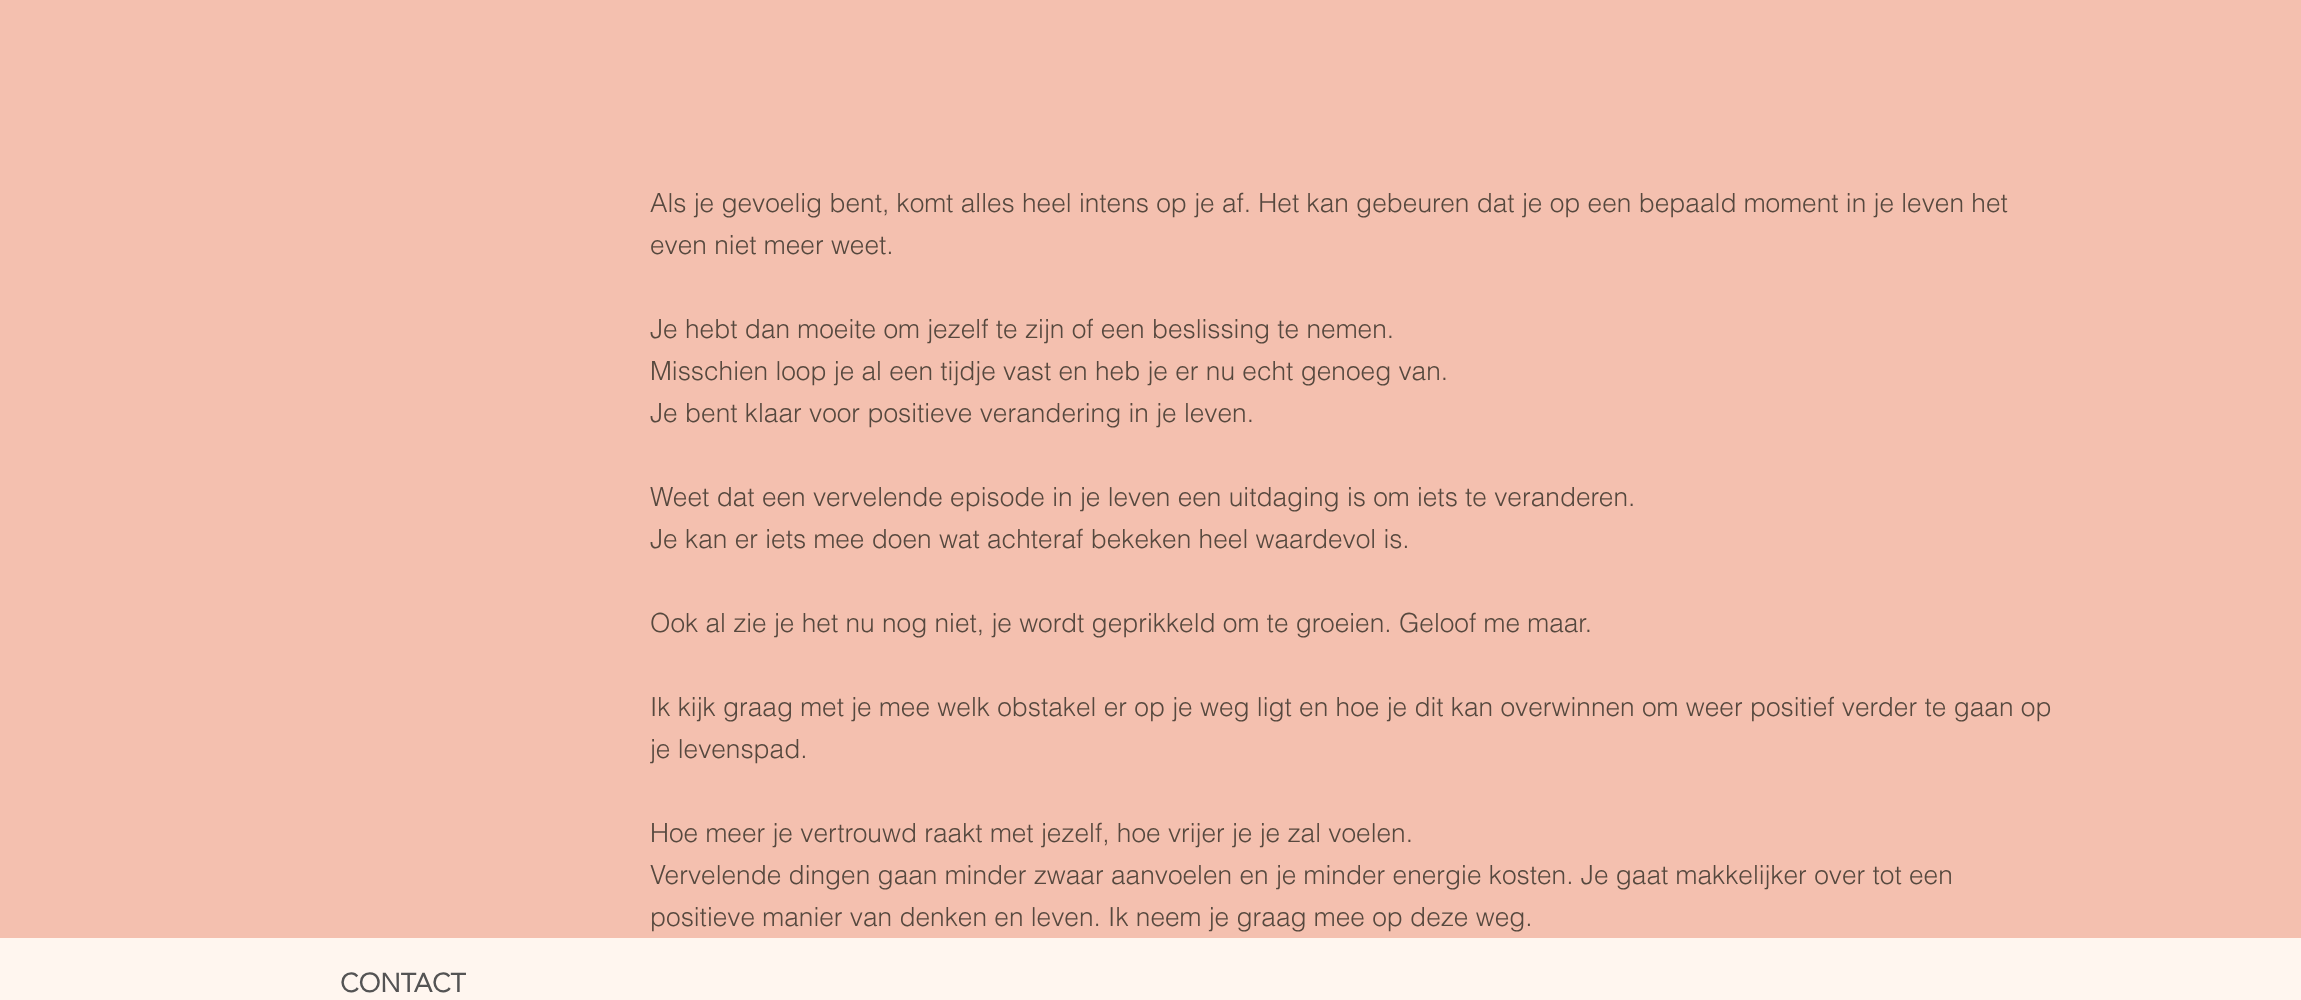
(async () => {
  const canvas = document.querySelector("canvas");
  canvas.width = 2301;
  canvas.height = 1000;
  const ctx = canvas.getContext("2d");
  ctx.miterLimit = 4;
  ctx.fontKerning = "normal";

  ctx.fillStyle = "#f4c0af";
  ctx.fillRect(0, 0, 2301, 1000);
  ctx.fillStyle = "#fff6ef";
  ctx.fillRect(0, 938, 2301, 62);
  ctx.font = "300 26.25px helvetica";
  ctx.fillStyle = "#56483e";
  for (const [text, x, y] of [
    ["Als je gevoelig bent, komt alles heel intens op je af. Het kan gebeuren dat je op een bepaald moment in je leven het", 650, 212],
    ["even niet meer weet.", 650, 254],
    ["Je hebt dan moeite om jezelf te zijn of een beslissing te nemen.", 650, 338],
    ["Misschien loop je al een tijdje vast en heb je er nu echt genoeg van.", 650, 380],
    ["Je bent klaar voor positieve verandering in je leven.", 650, 422],
    ["Weet dat een vervelende episode in je leven een uitdaging is om iets te veranderen.", 650, 506],
    ["Je kan er iets mee doen wat achteraf bekeken heel waardevol is.", 650, 548],
    ["Ook al zie je het nu nog niet, je wordt geprikkeld om te groeien. Geloof me maar.", 650, 632],
    ["Ik kijk graag met je mee welk obstakel er op je weg ligt en hoe je dit kan overwinnen om weer positief verder te gaan op", 650, 716],
    ["je levenspad.", 650, 758],
    ["Hoe meer je vertrouwd raakt met jezelf, hoe vrijer je je zal voelen.", 650, 842],
    ["Vervelende dingen gaan minder zwaar aanvoelen en je minder energie kosten. Je gaat makkelijker over tot een", 650, 884],
    ["positieve manier van denken en leven. Ik neem je graag mee op deze weg.", 650, 926],
  ]) {
    ctx.fillText(text, x, y);
  }
  ctx.font = "bold 26.25px 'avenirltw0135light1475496'";
  ctx.fillStyle = "#545454";
  ctx.fillText("CONTACT", 340, 992);
})();
